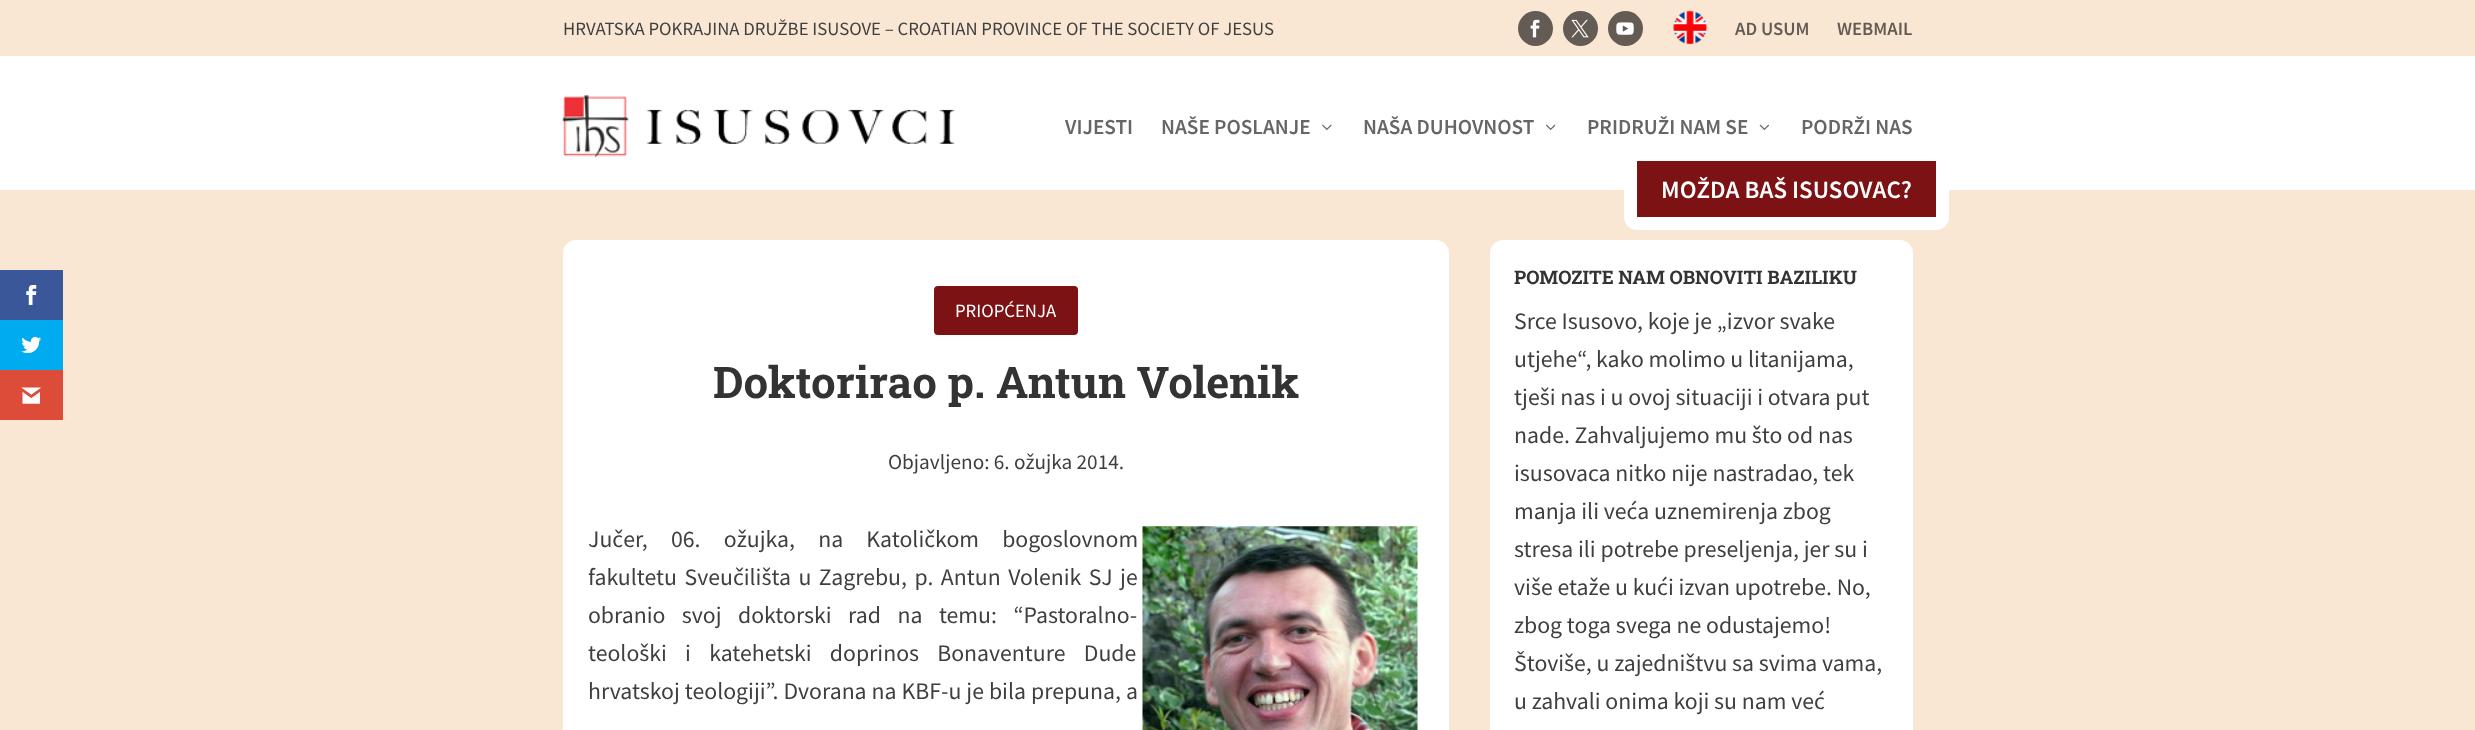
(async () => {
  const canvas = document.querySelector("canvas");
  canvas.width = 2475;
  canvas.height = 730;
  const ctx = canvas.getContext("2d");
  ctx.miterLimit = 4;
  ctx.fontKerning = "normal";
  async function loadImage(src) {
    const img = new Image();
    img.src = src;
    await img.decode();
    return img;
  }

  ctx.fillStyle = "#ffffff";
  ctx.fillRect(0, 0, 2475, 730);
  ctx.fillStyle = "#f9e7d3";
  ctx.fillRect(0, 190, 2475, 540);
  ctx.fillStyle = "#3a579a";
  ctx.fillRect(0, 270, 63, 50);
  ctx.drawImage(await loadImage("img/1.png"), 26, 285, 11, 20);
  ctx.fillStyle = "#00abf0";
  ctx.fillRect(0, 320, 63, 50);
  ctx.drawImage(await loadImage("img/2.png"), 21, 336, 21, 18);
  ctx.fillStyle = "#dd4b39";
  ctx.fillRect(0, 370, 63, 50);
  ctx.drawImage(await loadImage("img/3.png"), 21, 387, 20, 17);
  ctx.fillStyle = "#f9e7d3";
  ctx.fillRect(0, 0, 2475, 56);
  ctx.fillStyle = "#645c54";
  ctx.beginPath();
  ctx.arc(1535.5, 28.5, 17.5, 0, Math.PI * 2);
  ctx.fill();
  ctx.drawImage(await loadImage("img/4.png"), 1530, 19, 10, 19);
  ctx.beginPath();
  ctx.arc(1580.5, 28.5, 17.5, 0, Math.PI * 2);
  ctx.fill();
  ctx.drawImage(await loadImage("img/5.png"), 1571, 19, 18, 19);
  ctx.beginPath();
  ctx.arc(1625.5, 28.5, 17.5, 0, Math.PI * 2);
  ctx.fill();
  ctx.drawImage(await loadImage("img/6.png"), 1616, 22, 18, 13);
  ctx.drawImage(await loadImage("img/7.png"), 1673, 10, 34, 35);
  ctx.drawImage(await loadImage("img/8.png"), 562, 95, 393, 63);
  ctx.drawImage(await loadImage("img/9.png"), 1322, 124, 10, 6);
  ctx.drawImage(await loadImage("img/10.png"), 1546, 124, 10, 6);
  ctx.drawImage(await loadImage("img/11.png"), 1759, 124, 10, 6);
  ctx.fillStyle = "#7c1214";
  ctx.beginPath();
  ctx.roundRect(1630.5, 154.5, 312, 69, 6.5);
  ctx.fill();
  ctx.strokeStyle = "#ffffff";
  ctx.lineWidth = 13;
  ctx.stroke();
  ctx.fillStyle = "#ffffff";
  ctx.beginPath();
  ctx.roundRect(563, 240, 886, 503, 13);
  ctx.fill();
  ctx.fillStyle = "#7c1214";
  ctx.beginPath();
  ctx.roundRect(935.5, 287.5, 141, 46, 2.5);
  ctx.fill();
  ctx.strokeStyle = "#7c1214";
  ctx.lineWidth = 3;
  ctx.stroke();
  ctx.drawImage(await loadImage("img/12.png"), 1142, 526, 276, 204);
  ctx.fillStyle = "#ffffff";
  ctx.beginPath();
  ctx.roundRect(1490, 240, 423, 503, 13);
  ctx.fill();
  ctx.font = "18.75px Source Sans Pro";
  ctx.fillStyle = "#3f3f3f";
  ctx.fillText("HRVATSKA POKRAJINA DRUŽBE ISUSOVE – CROATIAN PROVINCE OF THE SOCIETY OF JESUS", 563, 35);
  ctx.font = "600 18.75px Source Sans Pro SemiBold";
  ctx.fillStyle = "#645c54";
  ctx.fillText("AD USUM", 1735, 35);
  ctx.fillText("WEBMAIL", 1837, 35);
  ctx.font = "600 21.25px Source Sans Pro SemiBold";
  ctx.fillStyle = "#666666";
  for (const [text, x, y] of [
    ["VIJESTI", 1065, 134],
    ["NAŠE POSLANJE", 1161, 134],
    ["NAŠA DUHOVNOST", 1363, 134],
    ["PRIDRUŽI NAM SE", 1587, 134],
    ["PODRŽI NAS", 1801, 134],
  ]) {
    ctx.fillText(text, x, y);
  }
  ctx.font = "600 25px Source Sans Pro SemiBold";
  ctx.fillStyle = "#ffffff";
  ctx.fillText("MOŽDA BAŠ ISUSOVAC?", 1661, 198);
  ctx.font = "18.75px Source Sans Pro";
  ctx.fillText("PRIOPĆENJA", 955, 317);
  ctx.font = "bold 43.75px Roboto Slab";
  ctx.fillStyle = "#333333";
  ctx.fillText("Doktorirao p. Antun Volenik", 713, 398);
  ctx.font = "21.25px Source Sans Pro";
  ctx.fillStyle = "#3f3f3f";
  ctx.fillText("Objavljeno: 6. ožujka 2014.", 888, 469);
  ctx.wordSpacing = "18.5px";
  ctx.font = "23.75px Source Sans Pro";
  ctx.fillText("Jučer, 06. ožujka, na Katoličkom bogoslovnom", 588, 547);
  ctx.wordSpacing = "2.75px";
  ctx.fillText("fakultetu Sveučilišta u Zagrebu, p. Antun Volenik SJ je", 588, 585);
  ctx.wordSpacing = "11.75px";
  ctx.fillText("obranio svoj doktorski rad na temu: “Pastoralno-", 588, 623);
  ctx.wordSpacing = "13.5px";
  ctx.fillText("teološki i katehetski doprinos Bonaventure Dude", 588, 661);
  ctx.wordSpacing = "0.25px";
  ctx.fillText("hrvatskoj teologiji”. Dvorana na KBF-u je bila prepuna, a", 588, 699);
  ctx.wordSpacing = "0px";
  ctx.font = "bold 18.75px Roboto Slab";
  ctx.fillStyle = "#333333";
  ctx.fillText("POMOZITE NAM OBNOVITI BAZILIKU", 1514, 284);
  ctx.font = "23.75px Source Sans Pro";
  ctx.fillStyle = "#3f3f3f";
  for (const [text, x, y] of [
    ["Srce Isusovo, koje je „izvor svake", 1514, 329],
    ["utjehe“, kako molimo u litanijama,", 1514, 367],
    ["tješi nas i u ovoj situaciji i otvara put", 1514, 405],
    ["nade. Zahvaljujemo mu što od nas", 1514, 443],
    ["isusovaca nitko nije nastradao, tek", 1514, 481],
    ["manja ili veća uznemirenja zbog", 1514, 519],
    ["stresa ili potrebe preseljenja, jer su i", 1514, 557],
    ["više etaže u kući izvan upotrebe. No,", 1514, 595],
    ["zbog toga svega ne odustajemo!", 1514, 633],
    ["Štoviše, u zajedništvu sa svima vama,", 1514, 671],
    ["u zahvali onima koji su nam već", 1514, 709],
  ]) {
    ctx.fillText(text, x, y);
  }
})();
